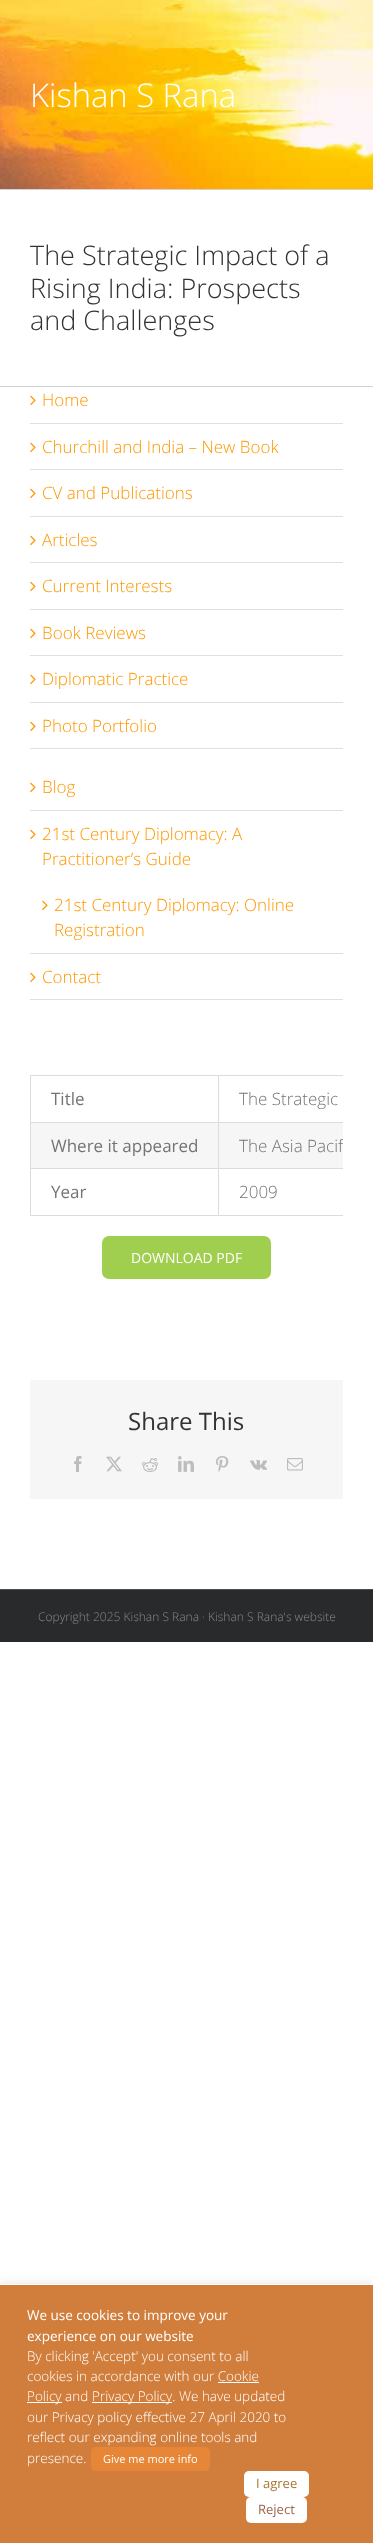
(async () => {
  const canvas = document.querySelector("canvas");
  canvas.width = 373;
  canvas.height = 2543;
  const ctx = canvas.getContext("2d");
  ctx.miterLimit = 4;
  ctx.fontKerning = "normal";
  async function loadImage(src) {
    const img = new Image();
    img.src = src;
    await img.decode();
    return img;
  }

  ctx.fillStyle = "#ffffff";
  ctx.fillRect(0, 0, 373, 2543);
  ctx.drawImage(await loadImage("img/1.png"), 0, 0, 373, 189);
  for (const [x, y, w, h, color] of [
    [0, 189, 373, 1, "#d2d3d4"],
    [0, 386, 373, 1, "#d2d3d4"],
    [30, 423, 313, 1, "#e0dede"],
  ]) {
    ctx.fillStyle = color;
    ctx.fillRect(x, y, w, h);
  }
  ctx.drawImage(await loadImage("img/2.png"), 30, 395, 6, 11);
  ctx.fillRect(30, 469, 313, 1);
  ctx.drawImage(await loadImage("img/2.png"), 30, 442, 6, 11);
  ctx.fillRect(30, 516, 313, 1);
  ctx.drawImage(await loadImage("img/2.png"), 30, 488, 6, 11);
  ctx.fillRect(30, 562, 313, 1);
  ctx.drawImage(await loadImage("img/2.png"), 30, 535, 6, 11);
  ctx.fillRect(30, 609, 313, 1);
  ctx.drawImage(await loadImage("img/2.png"), 30, 581, 6, 11);
  ctx.fillRect(30, 655, 313, 1);
  ctx.drawImage(await loadImage("img/2.png"), 30, 628, 6, 11);
  ctx.fillRect(30, 702, 313, 1);
  ctx.drawImage(await loadImage("img/2.png"), 30, 674, 6, 11);
  ctx.fillRect(30, 748, 313, 1);
  ctx.drawImage(await loadImage("img/2.png"), 30, 721, 6, 11);
  ctx.fillRect(30, 810, 313, 1);
  ctx.drawImage(await loadImage("img/2.png"), 30, 782, 6, 11);
  ctx.fillRect(30, 953, 313, 1);
  ctx.drawImage(await loadImage("img/2.png"), 30, 829, 6, 11);
  ctx.drawImage(await loadImage("img/2.png"), 42, 900, 6, 11);
  ctx.fillRect(30, 999, 313, 1);
  ctx.drawImage(await loadImage("img/2.png"), 30, 972, 6, 11);
  for (const [x, y, w, h, color] of [
    [30, 1075, 313, 1, "#dcdcdc"],
    [30, 1215, 313, 1, "#dcdcdc"],
    [30, 1075, 1, 141, "#dcdcdc"],
    [218, 1122, 125, 1, "#dcdcdc"],
    [31, 1123, 312, 45, "#f6f6f6"],
    [218, 1168, 125, 1, "#dcdcdc"],
    [218, 1168, 1, 48, "#dcdcdc"],
    [30, 1168, 189, 1, "#dcdcdc"],
    [218, 1122, 1, 47, "#dcdcdc"],
    [30, 1122, 189, 1, "#dcdcdc"],
    [218, 1075, 1, 48, "#dcdcdc"],
  ]) {
    ctx.fillStyle = color;
    ctx.fillRect(x, y, w, h);
  }
  ctx.fillStyle = "#a0ce4e";
  ctx.beginPath();
  ctx.roundRect(102, 1236, 169, 43, 7);
  ctx.fill();
  ctx.fillStyle = "#f6f6f6";
  ctx.fillRect(30, 1380, 313, 119);
  ctx.drawImage(await loadImage("img/3.png"), 74, 1456, 8, 16);
  ctx.drawImage(await loadImage("img/4.png"), 106, 1456, 16, 16);
  ctx.drawImage(await loadImage("img/5.png"), 142, 1458, 16, 14);
  ctx.drawImage(await loadImage("img/6.png"), 178, 1456, 16, 16);
  ctx.drawImage(await loadImage("img/7.png"), 215, 1456, 14, 16);
  ctx.drawImage(await loadImage("img/8.png"), 250, 1460, 17, 10);
  ctx.drawImage(await loadImage("img/9.png"), 287, 1458, 16, 13);
  ctx.fillStyle = "#282a2b";
  ctx.fillRect(0, 1590, 373, 52);
  ctx.fillStyle = "#4b4c4d";
  ctx.fillRect(0, 1589, 373, 1);
  ctx.fillStyle = "rgba(172, 171, 171, 0.3)";
  ctx.filter = "blur(5px)";
  ctx.beginPath();
  ctx.rect(0, 2283, 373, 259);
  ctx.fill();
  ctx.filter = "none";
  for (const [x, y, w, h, color] of [
    [0, 2285, 373, 258, "#d17e3c"],
    [0, 2284, 373, 1, "#ffffff"],
    [218, 2382, 41, 1, "#ffffff"],
    [27, 2402, 35, 1, "#ffffff"],
    [92, 2402, 80, 1, "#ffffff"],
  ]) {
    ctx.fillStyle = color;
    ctx.fillRect(x, y, w, h);
  }
  ctx.fillStyle = "#e78637";
  ctx.beginPath();
  ctx.roundRect(91, 2447, 119, 24, 5);
  ctx.fill();
  ctx.fillStyle = "#ffffff";
  ctx.beginPath();
  ctx.roundRect(244, 2471, 65, 26, 5);
  ctx.fill();
  ctx.beginPath();
  ctx.roundRect(246, 2497, 61, 26, 5);
  ctx.fill();
  ctx.font = "300 32.75px Open Sans";
  ctx.fillText("Kishan S Rana", 30, 107);
  ctx.font = "300 27px Open Sans";
  ctx.fillStyle = "#333333";
  for (const [text, x, y] of [
    ["The Strategic Impact of a", 30, 265],
    ["Rising India: Prospects", 30, 298],
    ["and Challenges", 30, 330],
  ]) {
    ctx.fillText(text, x, y);
  }
  ctx.font = "300 17px Open Sans";
  ctx.fillStyle = "#ff9800";
  for (const [text, x, y] of [
    ["Home", 42, 406],
    ["Churchill and India – New Book", 42, 453],
    ["CV and Publications", 42, 499],
    ["Articles", 42, 546],
    ["Current Interests", 42, 592],
    ["Book Reviews", 42, 639],
    ["Diplomatic Practice", 42, 685],
    ["Photo Portfolio", 42, 732],
    ["Blog", 42, 793],
    ["21st Century Diplomacy: A", 42, 840],
    ["Practitioner’s Guide", 42, 865],
    ["21st Century Diplomacy: Online", 54, 911],
    ["Registration", 54, 936],
    ["Contact", 42, 983],
  ]) {
    ctx.fillText(text, x, y);
  }
  ctx.font = "17px Open Sans";
  ctx.fillStyle = "#747474";
  ctx.fillText("Title", 51, 1105);
  ctx.font = "300 17px Open Sans";
  ctx.fillText("The Strategic", 239, 1105);
  ctx.font = "17px Open Sans";
  ctx.fillText("Where it appeared", 51, 1152);
  ctx.save();
  ctx.beginPath();
  ctx.rect(30, 1075, 313, 141);
  ctx.clip();
  ctx.font = "300 17px Open Sans";
  ctx.fillText("The Asia Pacif", 239, 1152);
  ctx.restore();
  ctx.fillText("Year", 51, 1198);
  ctx.font = "300 17px Open Sans";
  ctx.fillText("2009", 239, 1198);
  ctx.font = "14px Open Sans";
  ctx.fillStyle = "#ffffff";
  ctx.fillText("DOWNLOAD PDF", 131, 1263);
  ctx.font = "24px Open Sans";
  ctx.fillStyle = "#333333";
  ctx.fillText("Share This", 128, 1430);
  ctx.font = "300 12px Open Sans";
  ctx.fillStyle = "#8c8989";
  ctx.fillText("Copyright 2025 Kishan S Rana · Kishan S Rana's website", 38, 1621);
  ctx.font = "13.5px Open Sans";
  ctx.fillStyle = "#ffffff";
  ctx.fillText("We use cookies to improve your", 27, 2320);
  ctx.fillText("experience on our website", 27, 2341);
  ctx.font = "300 13.5px Open Sans";
  for (const [text, x, y] of [
    ["By clicking 'Accept' you consent to all", 27, 2361],
    ["cookies in accordance with our Cookie", 27, 2381],
    ["Policy and", 27, 2401],
    ["Privacy Policy. We have updated", 92, 2401],
    ["our Privacy policy effective 27 April 2020 to", 27, 2422],
    ["reflect our expanding online tools and", 27, 2442],
    ["presence.", 27, 2463],
  ]) {
    ctx.fillText(text, x, y);
  }
  ctx.font = "11px Open Sans";
  ctx.fillText("Give me more info", 103, 2463);
  ctx.font = "13px Open Sans";
  ctx.fillStyle = "#ad7530";
  ctx.fillText("I agree", 256, 2488);
  ctx.fillStyle = "#a0644c";
  ctx.fillText("Reject", 258, 2514);
})();
